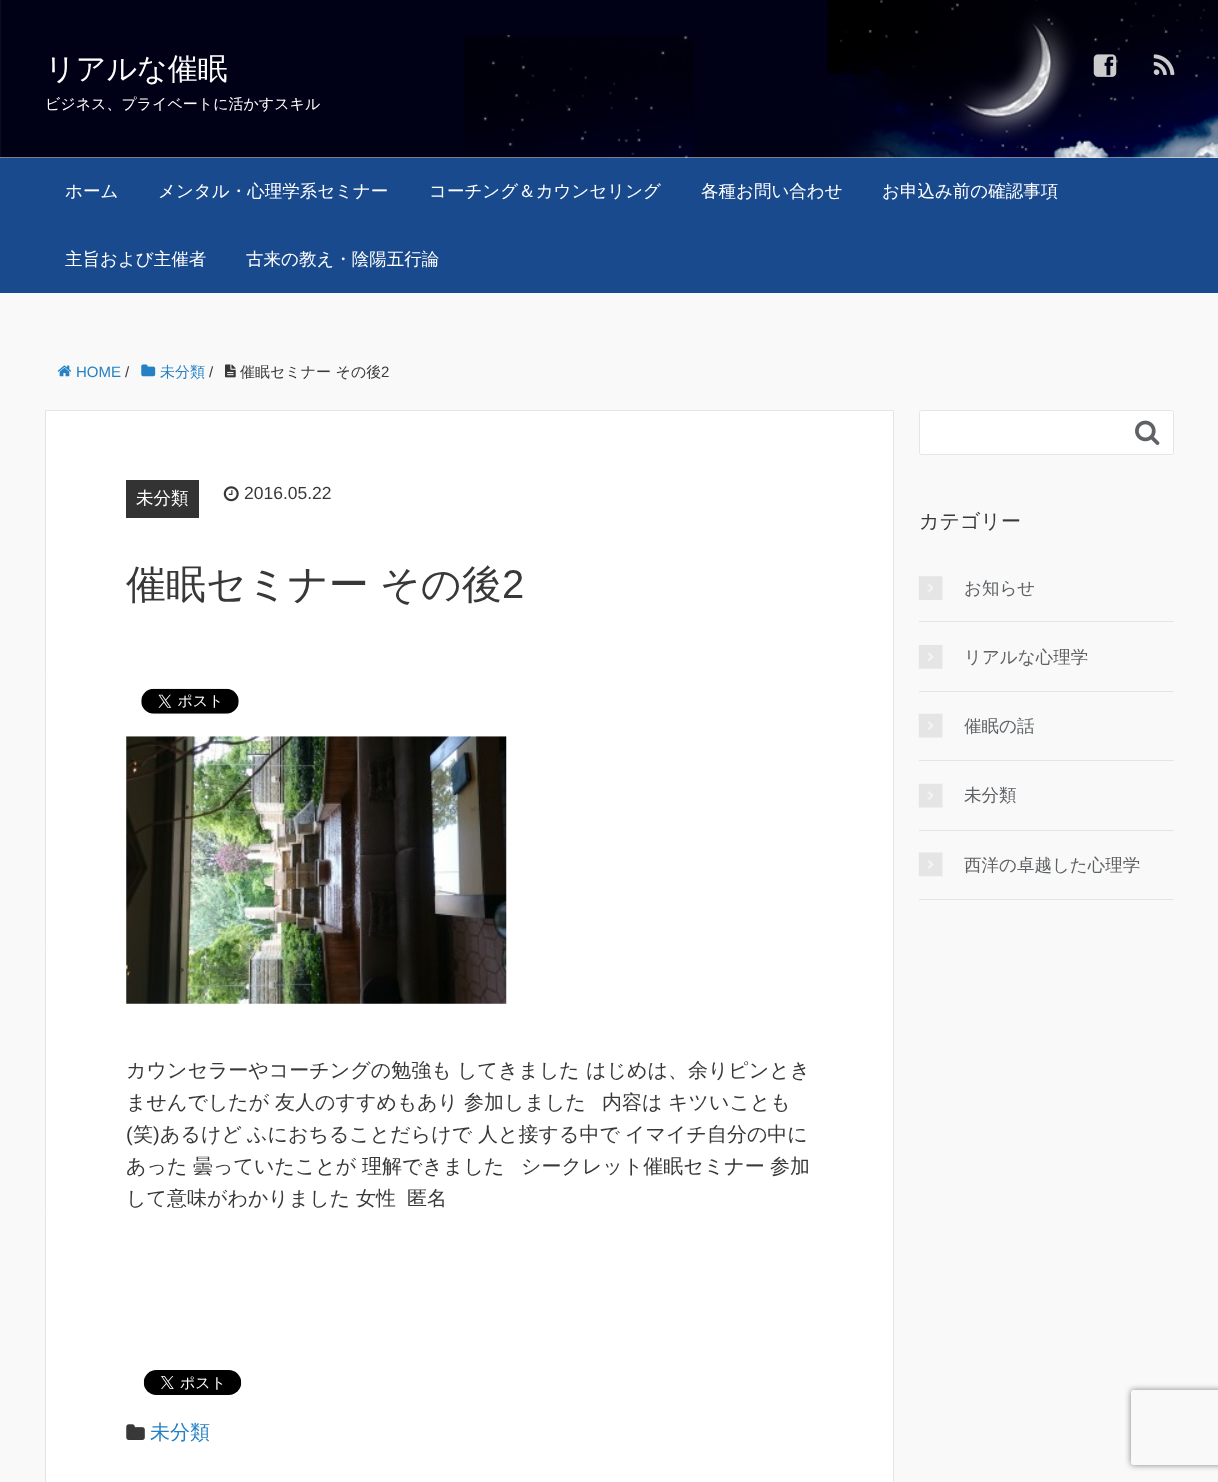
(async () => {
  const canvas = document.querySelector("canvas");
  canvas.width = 1218;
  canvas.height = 1482;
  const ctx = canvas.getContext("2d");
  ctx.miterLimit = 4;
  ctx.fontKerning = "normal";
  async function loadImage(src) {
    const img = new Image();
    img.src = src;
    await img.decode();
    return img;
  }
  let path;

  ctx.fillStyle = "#f9f9f9";
  ctx.fillRect(0, 0, 1218, 1482);
  ctx.fillStyle = "#ffffff";
  ctx.fillRect(0, 157, 1218, 1);
  ctx.drawImage(await loadImage("img/1.png"), 0, 0, 1218, 158);
  ctx.drawImage(await loadImage("img/2.png"), 1093, 54, 24, 23);
  ctx.drawImage(await loadImage("img/3.png"), 1153, 54, 22, 21);
  ctx.fillStyle = "#194a8d";
  ctx.fillRect(0, 158, 1218, 135);
  ctx.drawImage(await loadImage("img/4.png"), 57, 365, 15, 12);
  ctx.drawImage(await loadImage("img/5.png"), 141, 364, 15, 13);
  ctx.drawImage(await loadImage("img/6.png"), 225, 364, 11, 14);
  ctx.fillStyle = "#ffffff";
  ctx.beginPath();
  ctx.rect(45.5, 410.5, 848, 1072);
  ctx.fill();
  ctx.strokeStyle = "#e5e5e5";
  ctx.stroke();
  ctx.fillStyle = "#333333";
  ctx.fillRect(126, 480, 73, 38);
  ctx.drawImage(await loadImage("img/7.png"), 223, 486, 16, 16);
  ctx.drawImage(await loadImage("img/8.png"), 141, 688, 98, 26);
  ctx.drawImage(await loadImage("img/9.png"), 126, 736, 381, 268);
  ctx.drawImage(await loadImage("img/10.png"), 143, 1370, 99, 25);
  ctx.drawImage(await loadImage("img/11.png"), 126, 1424, 19, 16);
  ctx.fillStyle = "#ffffff";
  ctx.beginPath();
  ctx.roundRect(919.5, 410.5, 254, 44, 2);
  ctx.fill();
  ctx.stroke();
  ctx.drawImage(await loadImage("img/12.png"), 1135, 420, 25, 25);
  ctx.fillStyle = "#e5e5e5";
  ctx.fillRect(919, 621, 255, 1);
  ctx.drawImage(await loadImage("img/13.png"), 918, 576, 25, 24);
  ctx.fillRect(919, 691, 255, 1);
  ctx.drawImage(await loadImage("img/14.png"), 918, 645, 25, 24);
  ctx.fillRect(919, 760, 255, 1);
  ctx.drawImage(await loadImage("img/15.png"), 918, 713, 25, 25);
  ctx.fillRect(919, 830, 255, 1);
  ctx.drawImage(await loadImage("img/15.png"), 918, 783, 25, 25);
  ctx.fillRect(919, 899, 255, 1);
  ctx.drawImage(await loadImage("img/16.png"), 918, 852, 25, 25);
  ctx.save();
  path = new Path2D("M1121 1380H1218V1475H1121ZM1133.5 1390H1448.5C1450 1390 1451 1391 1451 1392.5V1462.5C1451 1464 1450 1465 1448.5 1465H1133.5C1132 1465 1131 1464 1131 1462.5V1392.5C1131 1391 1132 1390 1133.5 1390Z");
  ctx.clip(path, "evenodd");
  ctx.fillStyle = "#808080";
  ctx.filter = "blur(3px)";
  ctx.beginPath();
  ctx.roundRect(1131, 1390, 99, 75, 2.5);
  ctx.fill();
  ctx.filter = "none";
  ctx.restore();
  ctx.font = "500 30px WenQuanYi Zen Hei";
  ctx.fillStyle = "#ffffff";
  ctx.fillText("リアルな催眠", 45, 79);
  ctx.font = "500 15px WenQuanYi Zen Hei";
  ctx.fillText("ビジネス、プライベートに活かすスキル", 45, 109);
  ctx.font = "500 17.5px WenQuanYi Zen Hei";
  for (const [text, x, y] of [
    ["ホーム", 65, 197],
    ["メンタル・心理学系セミナー", 158, 197],
    ["コーチング＆カウンセリング", 429, 197],
    ["各種お問い合わせ", 701, 197],
    ["お申込み前の確認事項", 882, 197],
    ["主旨および主催者", 65, 265],
    ["古来の教え・陰陽五行論", 246, 265],
  ]) {
    ctx.fillText(text, x, y);
  }
  ctx.font = "15px Liberation Sans";
  ctx.fillStyle = "#2581c4";
  ctx.fillText("HOME", 76, 377);
  ctx.fillStyle = "#383838";
  ctx.fillText("/", 125, 377);
  ctx.font = "500 15px WenQuanYi Zen Hei";
  ctx.fillStyle = "#2581c4";
  ctx.fillText("未分類", 160, 377);
  ctx.font = "15px Liberation Sans";
  ctx.fillStyle = "#383838";
  ctx.fillText("/", 209, 377);
  ctx.font = "500 15px WenQuanYi Zen Hei";
  ctx.fillText("催眠セミナー その後", 240, 377);
  ctx.font = "15px Liberation Sans";
  ctx.fillText("2", 381, 377);
  ctx.font = "500 17.5px WenQuanYi Zen Hei";
  ctx.fillStyle = "#ffffff";
  ctx.fillText("未分類", 136, 504);
  ctx.font = "17.5px Liberation Sans";
  ctx.fillStyle = "#383838";
  ctx.fillText("2016.05.22", 244, 499);
  ctx.wordSpacing = "-1px";
  ctx.font = "500 40px WenQuanYi Zen Hei";
  ctx.fillText("催眠セミナー その後", 126, 598);
  ctx.wordSpacing = "0px";
  ctx.font = "40px Liberation Sans";
  ctx.fillText("2", 502, 598);
  ctx.font = "500 20px WenQuanYi Zen Hei";
  for (const [text, x, y] of [
    ["カウンセラーやコーチングの勉強も", 126, 1077],
    ["してきました", 457, 1077],
    ["はじめは、余りピンとき", 586, 1077],
    ["ませんでしたが", 126, 1109],
    ["友人のすすめもあり", 275, 1109],
    ["参加しました", 464, 1109],
    ["内容は", 602, 1109],
    ["キツいことも", 668, 1109],
  ]) {
    ctx.fillText(text, x, y);
  }
  ctx.font = "20px Liberation Sans";
  ctx.fillText("(", 126, 1141);
  ctx.font = "500 20px WenQuanYi Zen Hei";
  ctx.fillText("笑", 133, 1141);
  ctx.font = "20px Liberation Sans";
  ctx.fillText(")", 153, 1141);
  ctx.font = "500 20px WenQuanYi Zen Hei";
  for (const [text, x, y] of [
    ["あるけど", 160, 1141],
    ["ふにおちることだらけで", 247, 1141],
    ["人と接する中で", 478, 1141],
    ["イマイチ自分の中に", 625, 1141],
    ["あった", 126, 1173],
    ["曇っていたことが", 193, 1173],
    ["理解できました", 362, 1173],
    ["シークレット催眠セミナー", 521, 1173],
    ["参加", 770, 1173],
    ["して意味がわかりました", 126, 1205],
    ["女性", 356, 1205],
    ["匿名", 407, 1205],
  ]) {
    ctx.fillText(text, x, y);
  }
  ctx.fillStyle = "#2581c4";
  ctx.fillText("未分類", 150, 1439);
  ctx.fillStyle = "#383838";
  ctx.fillText("カテゴリー", 919, 528);
  ctx.font = "500 17.5px WenQuanYi Zen Hei";
  ctx.fillStyle = "#5e6265";
  for (const [text, x, y] of [
    ["お知らせ", 964, 594],
    ["リアルな心理学", 964, 663],
    ["催眠の話", 964, 732],
    ["未分類", 964, 801],
    ["西洋の卓越した心理学", 964, 871],
  ]) {
    ctx.fillText(text, x, y);
  }
})();
